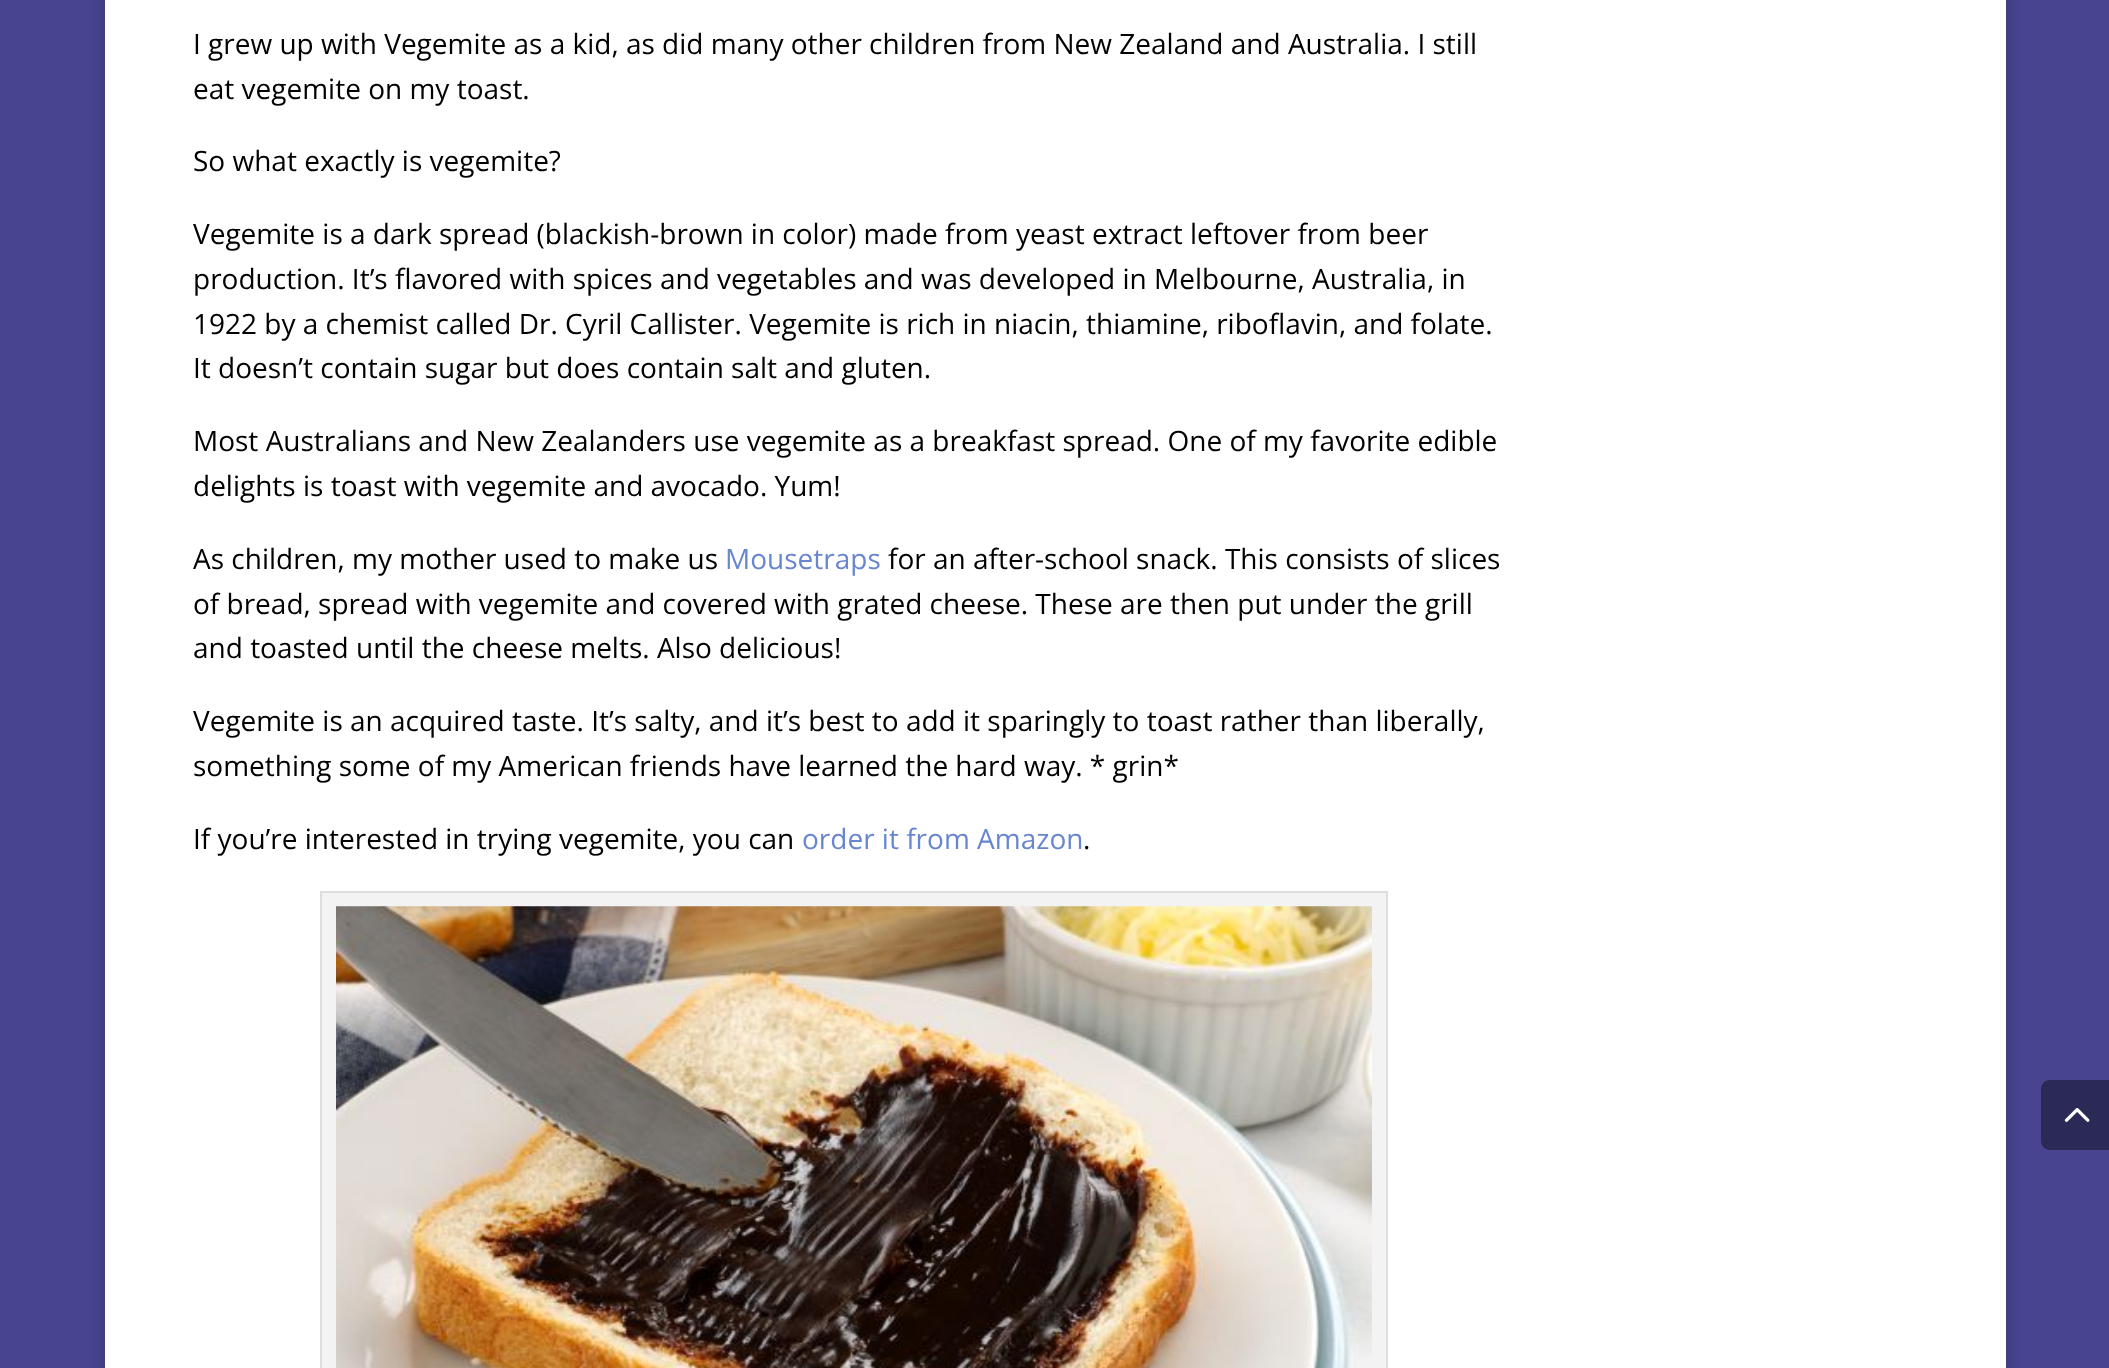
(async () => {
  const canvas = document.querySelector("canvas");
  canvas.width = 2109;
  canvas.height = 1368;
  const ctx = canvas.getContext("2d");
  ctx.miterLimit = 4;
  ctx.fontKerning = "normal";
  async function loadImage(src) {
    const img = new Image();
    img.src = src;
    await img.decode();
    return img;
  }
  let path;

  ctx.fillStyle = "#484490";
  ctx.fillRect(0, 0, 2109, 1368);
  ctx.fillStyle = "rgba(0, 0, 0, 0.2)";
  ctx.filter = "blur(9px)";
  ctx.beginPath();
  ctx.rect(105, -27, 1901, 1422);
  ctx.fill();
  ctx.filter = "none";
  ctx.fillStyle = "#ffffff";
  ctx.fillRect(105, 0, 1901, 1368);
  ctx.fillStyle = "#f3f3f3";
  ctx.beginPath();
  ctx.rect(321, 892, 1066, 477);
  ctx.fill();
  ctx.strokeStyle = "#dddddd";
  ctx.lineWidth = 2;
  ctx.stroke();
  ctx.drawImage(await loadImage("img/1.png"), 336, 906, 1036, 462);
  ctx.fillStyle = "#2b2956";
  path = new Path2D("M2050 1080H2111V1150H2050C2045 1150 2041 1146 2041 1141V1089C2041 1084 2045 1080 2050 1080Z");
  ctx.fill(path);
  ctx.drawImage(await loadImage("img/2.png"), 2064, 1108, 26, 14);
  ctx.font = "28px Open Sans";
  ctx.fillStyle = "#000000";
  for (const [text, x, y] of [
    ["I grew up with Vegemite as a kid, as did many other children from New Zealand and Australia. I still", 193, 54],
    ["eat vegemite on my toast.", 193, 99],
    ["So what exactly is vegemite?", 193, 171],
    ["Vegemite is a dark spread (blackish-brown in color) made from yeast extract leftover from beer", 193, 244],
    ["production. It’s flavored with spices and vegetables and was developed in Melbourne, Australia, in", 193, 289],
    ["1922 by a chemist called Dr. Cyril Callister. Vegemite is rich in niacin, thiamine, riboflavin, and folate.", 193, 334],
    ["It doesn’t contain sugar but does contain salt and gluten.", 193, 378],
    ["Most Australians and New Zealanders use vegemite as a breakfast spread. One of my favorite edible", 193, 451],
    ["delights is toast with vegemite and avocado. Yum!", 193, 496],
    ["As children, my mother used to make us", 193, 569],
  ]) {
    ctx.fillText(text, x, y);
  }
  ctx.fillStyle = "#6886cf";
  ctx.fillText("Mousetraps", 725, 569);
  ctx.fillStyle = "#000000";
  for (const [text, x, y] of [
    ["for an after-school snack. This consists of slices", 888, 569],
    ["of bread, spread with vegemite and covered with grated cheese. These are then put under the grill", 193, 614],
    ["and toasted until the cheese melts. Also delicious!", 193, 658],
    ["Vegemite is an acquired taste. It’s salty, and it’s best to add it sparingly to toast rather than liberally,", 193, 731],
    ["something some of my American friends have learned the hard way. * grin*", 193, 776],
    ["If you’re interested in trying vegemite, you can", 193, 849],
  ]) {
    ctx.fillText(text, x, y);
  }
  ctx.fillStyle = "#6886cf";
  ctx.fillText("order it from Amazon", 802, 849);
  ctx.fillStyle = "#000000";
  ctx.fillText(".", 1083, 849);
})();
